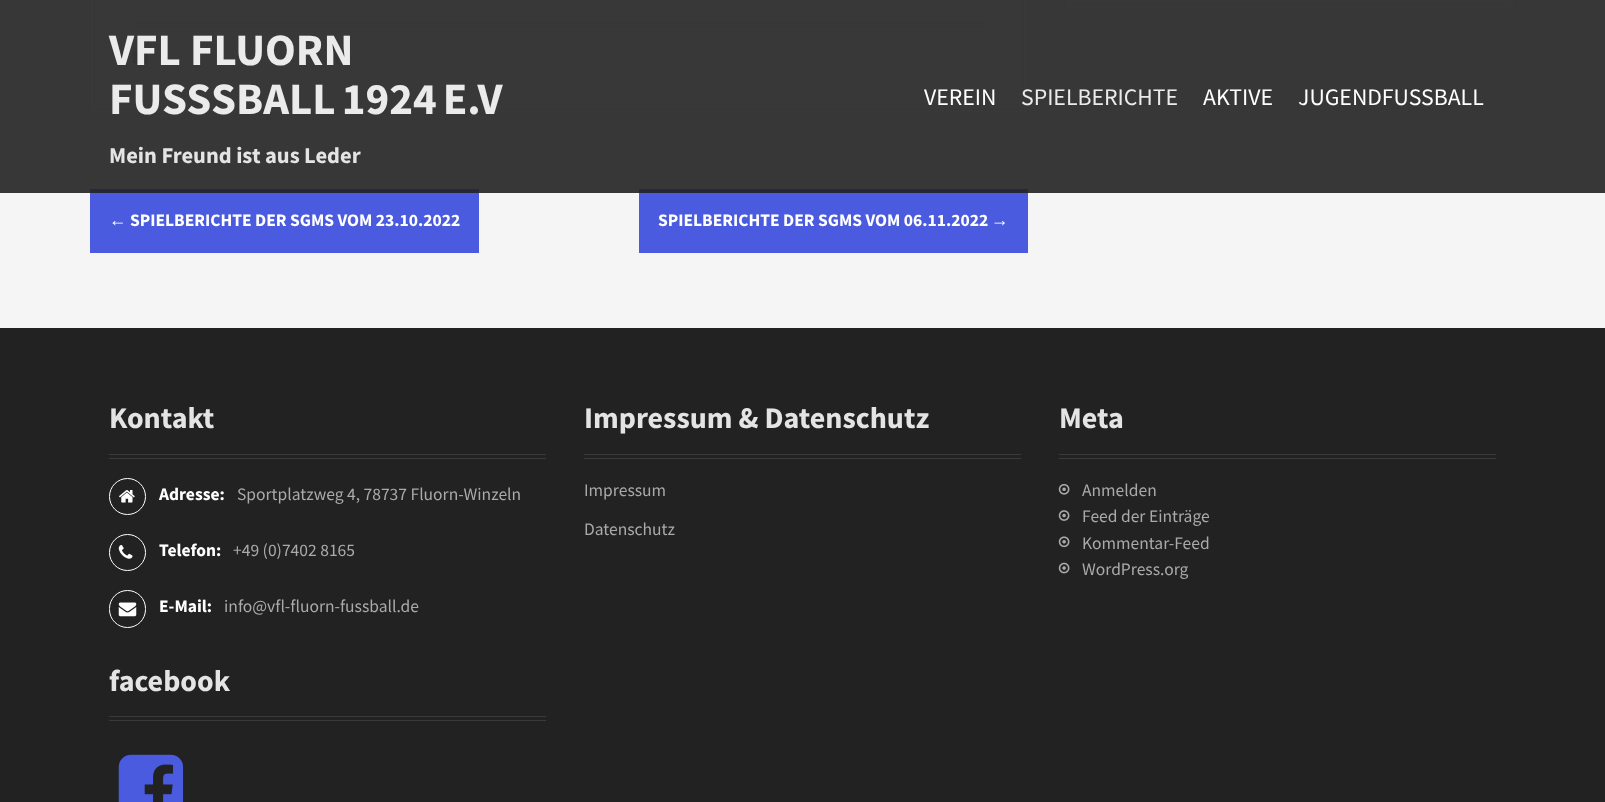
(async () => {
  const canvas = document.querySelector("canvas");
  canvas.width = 1605;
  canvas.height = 802;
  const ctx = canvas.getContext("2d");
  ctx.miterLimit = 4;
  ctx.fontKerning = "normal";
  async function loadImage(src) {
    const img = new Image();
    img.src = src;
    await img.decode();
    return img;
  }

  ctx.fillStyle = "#f5f5f5";
  ctx.fillRect(0, 0, 1605, 802);
  ctx.fillStyle = "#ffffff";
  ctx.beginPath();
  ctx.rect(1065.5, -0.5, 449, 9);
  ctx.fill();
  ctx.strokeStyle = "#ebebeb";
  ctx.stroke();
  ctx.strokeRect(1069.5, -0.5, 441, 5);
  ctx.beginPath();
  ctx.rect(90.5, -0.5, 937, 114);
  ctx.fill();
  ctx.stroke();
  ctx.strokeRect(94.5, -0.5, 929, 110);
  ctx.fillStyle = "#ebebeb";
  ctx.fillRect(133, 23, 852, 1);
  ctx.fillRect(133, 26, 852, 1);
  ctx.drawImage(await loadImage("img/1.png"), 132, 51, 16, 13);
  ctx.drawImage(await loadImage("img/2.png"), 329, 50, 15, 15);
  ctx.fillStyle = "#adadad";
  ctx.filter = "blur(0.5px)";
  ctx.beginPath();
  ctx.rect(90, 189, 389, 64);
  ctx.fill();
  ctx.filter = "none";
  ctx.fillStyle = "#4a5be0";
  ctx.fillRect(90, 189, 389, 64);
  ctx.fillStyle = "#adadad";
  ctx.filter = "blur(0.5px)";
  ctx.beginPath();
  ctx.rect(639, 189, 389, 64);
  ctx.fill();
  ctx.filter = "none";
  for (const [x, y, w, h, color] of [
    [639, 189, 389, 64, "#4a5be0"],
    [0, 0, 1605, 193, "rgba(34, 34, 34, 0.9)"],
    [0, 328, 1605, 474, "#222222"],
    [109, 454, 437, 1, "#3a3a3a"],
    [109, 458, 437, 1, "#3a3a3a"],
  ]) {
    ctx.fillStyle = color;
    ctx.fillRect(x, y, w, h);
  }
  ctx.beginPath();
  ctx.arc(127.5, 496.5, 18, 0, Math.PI * 2);
  ctx.strokeStyle = "#ffffff";
  ctx.stroke();
  ctx.drawImage(await loadImage("img/3.png"), 119, 490, 16, 13);
  ctx.beginPath();
  ctx.arc(127.5, 552.5, 18, 0, Math.PI * 2);
  ctx.stroke();
  ctx.drawImage(await loadImage("img/4.png"), 118, 545, 15, 14);
  ctx.beginPath();
  ctx.roundRect(109.5, 590.5, 36, 37, 18);
  ctx.stroke();
  ctx.drawImage(await loadImage("img/5.png"), 118, 602, 19, 15);
  ctx.fillRect(109, 716, 437, 1);
  ctx.fillRect(109, 720, 437, 1);
  ctx.drawImage(await loadImage("img/6.png"), 118, 754, 66, 48);
  for (const [x, y, w, h, color] of [
    [584, 454, 437, 1, "#3a3a3a"],
    [584, 458, 437, 1, "#3a3a3a"],
    [1059, 454, 437, 1, "#3a3a3a"],
    [1059, 458, 437, 1, "#3a3a3a"],
  ]) {
    ctx.fillStyle = color;
    ctx.fillRect(x, y, w, h);
  }
  ctx.drawImage(await loadImage("img/7.png"), 1058, 484, 12, 11);
  ctx.drawImage(await loadImage("img/8.png"), 1058, 510, 12, 11);
  ctx.drawImage(await loadImage("img/9.png"), 1058, 536, 12, 12);
  ctx.drawImage(await loadImage("img/10.png"), 1058, 562, 12, 12);
  ctx.font = "bold 45px Source Sans Pro";
  ctx.fillStyle = "#ebebeb";
  for (const [text, x, y] of [
    ["VFL FLUORN", 109, 65],
    ["FU", 109, 114],
    ["SS", 162, 114],
  ]) {
    ctx.fillText(text, x, y);
  }
  ctx.wordSpacing = "-3px";
  ctx.fillText("SBALL 1924 E.V", 211, 114);
  ctx.wordSpacing = "0px";
  ctx.font = "bold 22.5px Source Sans Pro";
  ctx.fillStyle = "#e4e4e4";
  ctx.fillText("Mein Freund ist aus Leder", 109, 163);
  ctx.font = "23.75px Source Sans Pro";
  ctx.fillStyle = "#ffffff";
  ctx.fillText("VEREIN", 924, 105);
  ctx.fillStyle = "#ebebeb";
  ctx.fillText("SPIELBERICHTE", 1021, 105);
  ctx.fillStyle = "#ffffff";
  ctx.fillText("AKTIVE", 1203, 105);
  ctx.fillText("JUGENDFUSSBALL", 1298, 105);
  ctx.font = "bold 17.5px Liberation Serif";
  ctx.fillText("←", 109, 226);
  ctx.font = "bold 17.5px Source Sans Pro";
  ctx.fillText("SPIELBERICHTE DER SGMS VOM 23.10.2022", 130, 226);
  ctx.fillText("SPIELBERICHTE DER SGMS VOM 06.11.2022", 658, 226);
  ctx.font = "bold 17.5px Liberation Serif";
  ctx.fillText("→", 991, 226);
  ctx.font = "bold 30px Source Sans Pro";
  ctx.fillStyle = "#e4e4e4";
  ctx.fillText("Kontakt", 109, 428);
  ctx.font = "bold 17.5px Source Sans Pro";
  ctx.fillStyle = "#ffffff";
  ctx.fillText("Adresse:", 159, 500);
  ctx.font = "17.5px Source Sans Pro";
  ctx.fillStyle = "#aaaaaa";
  ctx.fillText("Sportplatzweg 4, 78737 Fluorn-Winzeln", 237, 500);
  ctx.font = "bold 17.5px Source Sans Pro";
  ctx.fillStyle = "#ffffff";
  ctx.fillText("Telefon:", 159, 556);
  ctx.font = "17.5px Source Sans Pro";
  ctx.fillStyle = "#aaaaaa";
  ctx.fillText("+49 (0)7402 8165", 233, 556);
  ctx.font = "bold 17.5px Source Sans Pro";
  ctx.fillStyle = "#ffffff";
  ctx.fillText("E-Mail:", 159, 612);
  ctx.font = "17.5px Source Sans Pro";
  ctx.fillStyle = "#aaaaaa";
  ctx.fillText("info@vfl-fluorn-fussball.de", 224, 612);
  ctx.font = "bold 30px Source Sans Pro";
  ctx.fillStyle = "#e4e4e4";
  ctx.fillText("facebook", 109, 691);
  ctx.fillText("Impressum & Datenschutz", 584, 428);
  ctx.font = "17.5px Source Sans Pro";
  ctx.fillStyle = "#aaaaaa";
  ctx.fillText("Impressum", 584, 496);
  ctx.fillText("Datenschutz", 584, 535);
  ctx.font = "bold 30px Source Sans Pro";
  ctx.fillStyle = "#e4e4e4";
  ctx.fillText("Meta", 1059, 428);
  ctx.font = "17.5px Source Sans Pro";
  ctx.fillStyle = "#aaaaaa";
  for (const [text, x, y] of [
    ["Anmelden", 1082, 496],
    ["Feed der Einträge", 1082, 522],
    ["Kommentar-Feed", 1082, 549],
    ["WordPress.org", 1082, 575],
  ]) {
    ctx.fillText(text, x, y);
  }
})();
